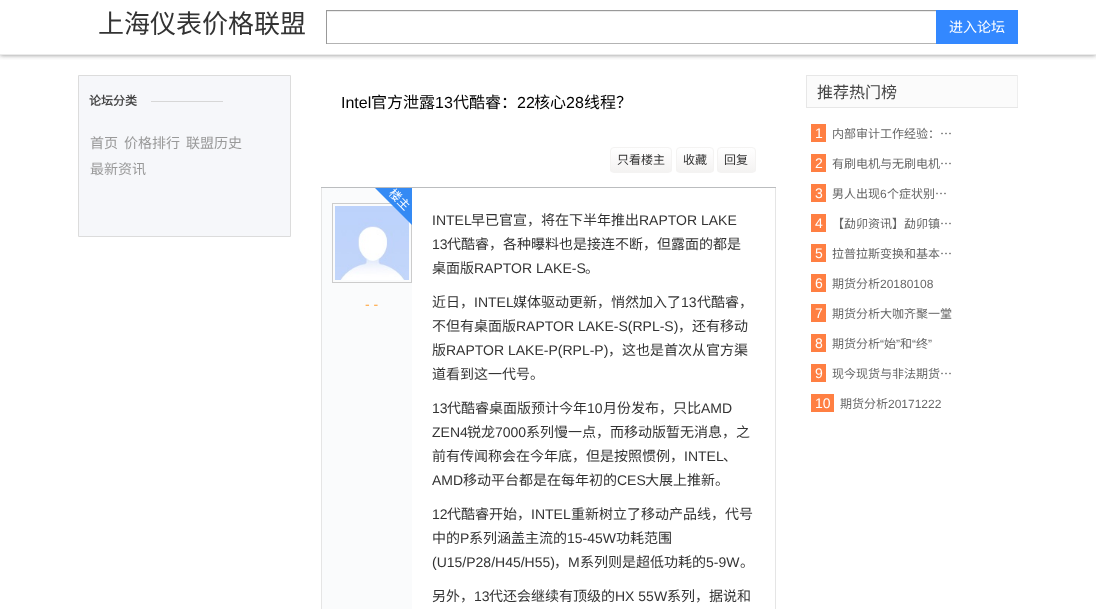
(async () => {
  const canvas = document.querySelector("canvas");
  canvas.width = 1096;
  canvas.height = 609;
  const ctx = canvas.getContext("2d");
  ctx.miterLimit = 4;
  ctx.fontKerning = "normal";
  async function loadImage(src) {
    const img = new Image();
    img.src = src;
    await img.decode();
    return img;
  }
  let gradient, path;

  ctx.fillStyle = "#ffffff";
  ctx.fillRect(0, 0, 1096, 609);
  ctx.save();
  ctx.beginPath();
  ctx.rect(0, 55, 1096, 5);
  ctx.clip();
  ctx.fillStyle = "#888888";
  ctx.filter = "blur(2.5px)";
  ctx.beginPath();
  ctx.rect(0, 0, 1096, 55);
  ctx.fill();
  ctx.filter = "none";
  ctx.restore();
  for (const [x, y, w, h, color] of [
    [0, 54, 1096, 1, "#ebebeb"],
    [327, 11, 609, 1, "#ececec"],
    [326, 10, 611, 1, "#999999"],
    [326, 43, 611, 1, "#b3b3b3"],
    [326, 10, 1, 34, "#999999"],
    [936, 10, 82, 34, "#3388ff"],
  ]) {
    ctx.fillStyle = color;
    ctx.fillRect(x, y, w, h);
  }
  ctx.fillStyle = "#f6f7fa";
  ctx.beginPath();
  ctx.rect(78.5, 75.5, 212, 161);
  ctx.fill();
  ctx.strokeStyle = "#dcdcdc";
  ctx.stroke();
  ctx.fillStyle = "#d7d7d7";
  ctx.fillRect(151, 101, 72, 1);
  ctx.fillStyle = "#bbbdbf";
  ctx.fillRect(321, 187, 455, 1);
  ctx.save();
  ctx.beginPath();
  ctx.roundRect(610, 147, 62, 26, 4);
  ctx.clip();
  gradient = ctx.createLinearGradient(641, 148, 641, 172);
  gradient.addColorStop(0, "#ffffff");
  gradient.addColorStop(1, "#f4f3f2");
  ctx.fillStyle = gradient;
  ctx.fillRect(610, 148, 62, 24);
  ctx.restore();
  ctx.beginPath();
  ctx.roundRect(610.5, 147.5, 61, 25, 3.5);
  ctx.strokeStyle = "#f4f3f2";
  ctx.stroke();
  ctx.save();
  ctx.beginPath();
  ctx.roundRect(676, 147, 38, 26, 4);
  ctx.clip();
  gradient = ctx.createLinearGradient(695, 148, 695, 172);
  gradient.addColorStop(0, "#ffffff");
  gradient.addColorStop(1, "#f4f3f2");
  ctx.fillStyle = gradient;
  ctx.fillRect(676, 148, 38, 24);
  ctx.restore();
  ctx.beginPath();
  ctx.roundRect(676.5, 147.5, 37, 25, 3.5);
  ctx.stroke();
  ctx.save();
  ctx.beginPath();
  ctx.roundRect(717, 147, 39, 26, 4);
  ctx.clip();
  gradient = ctx.createLinearGradient(737, 148, 737, 172);
  gradient.addColorStop(0, "#ffffff");
  gradient.addColorStop(1, "#f4f3f2");
  ctx.fillStyle = gradient;
  ctx.fillRect(717, 148, 39, 24);
  ctx.restore();
  ctx.beginPath();
  ctx.roundRect(717.5, 147.5, 38, 25, 3.5);
  ctx.stroke();
  for (const [x, y, w, h, color] of [
    [322, 188, 90, 421, "#fafbfc"],
    [775, 188, 1, 421, "#e5e5e5"],
    [321, 188, 1, 421, "#e5e5e5"],
  ]) {
    ctx.fillStyle = color;
    ctx.fillRect(x, y, w, h);
  }
  ctx.strokeStyle = "#cccccc";
  ctx.strokeRect(332.5, 203.5, 79, 79);
  ctx.drawImage(await loadImage("img/1.png"), 335, 206, 74, 74);
  ctx.save();
  ctx.beginPath();
  ctx.rect(332, 188, 80, 142);
  ctx.clip();
  ctx.fillStyle = "#348af4";
  path = new Path2D("M412 151L448 188L412 225L375 188Z");
  ctx.fill(path);
  ctx.restore();
  for (const [x, y, w, h, color] of [
    [807, 76, 210, 31, "#fbfbfb"],
    [806, 75, 212, 1, "#e7e7e7"],
    [1017, 75, 1, 33, "#eeeeee"],
    [806, 107, 212, 1, "#e7e7e7"],
    [806, 75, 1, 33, "#e7e7e7"],
    [811, 124, 15, 18, "#ff7f42"],
    [811, 154, 15, 18, "#ff7f42"],
    [811, 184, 15, 18, "#ff7f42"],
    [811, 214, 15, 18, "#ff7f42"],
    [811, 244, 15, 18, "#ff7f42"],
    [811, 274, 15, 18, "#ff7f42"],
    [811, 304, 15, 18, "#ff7f42"],
    [811, 334, 15, 18, "#ff7f42"],
    [811, 364, 15, 18, "#ff7f42"],
    [811, 394, 23, 18, "#ff7f42"],
  ]) {
    ctx.fillStyle = color;
    ctx.fillRect(x, y, w, h);
  }
  ctx.font = "26px Noto Sans CJK SC";
  ctx.fillStyle = "#333333";
  ctx.fillText("上海仪表价格联盟", 98, 33);
  ctx.font = "14px Noto Sans CJK SC";
  ctx.fillStyle = "#ffffff";
  ctx.fillText("进入论坛", 949, 32);
  ctx.font = "bold 12px Noto Sans CJK SC";
  ctx.fillStyle = "#444444";
  ctx.fillText("论坛分类", 89, 105);
  ctx.font = "14px Noto Sans CJK SC";
  ctx.fillStyle = "#999999";
  for (const [text, x, y] of [
    ["首页", 90, 148],
    ["价格排行", 124, 148],
    ["联盟历史", 186, 148],
    ["最新资讯", 90, 174],
  ]) {
    ctx.fillText(text, x, y);
  }
  ctx.font = "16px Liberation Sans";
  ctx.fillStyle = "#000000";
  ctx.fillText("Intel", 341, 108);
  ctx.font = "16px Noto Sans CJK SC";
  ctx.fillText("官方泄露", 371, 108);
  ctx.font = "16px Liberation Sans";
  ctx.fillText("13", 435, 108);
  ctx.font = "16px Noto Sans CJK SC";
  ctx.fillText("代酷睿：", 453, 108);
  ctx.font = "16px Liberation Sans";
  ctx.fillText("22", 517, 108);
  ctx.font = "16px Noto Sans CJK SC";
  ctx.fillText("核心", 534, 108);
  ctx.font = "16px Liberation Sans";
  ctx.fillText("28", 566, 108);
  ctx.font = "16px Noto Sans CJK SC";
  ctx.fillText("线程？", 584, 108);
  ctx.font = "12px Noto Sans CJK SC";
  ctx.fillStyle = "#333333";
  for (const [text, x, y] of [
    ["只看楼主", 617, 164],
    ["收藏", 683, 164],
    ["回复", 724, 164],
  ]) {
    ctx.fillText(text, x, y);
  }
  ctx.fillStyle = "#ffffff";
  ctx.save();
  ctx.translate(388, 194);
  ctx.rotate(45 * Math.PI / 180);
  ctx.fillText("楼主", 0, 0);
  ctx.restore();
  ctx.font = "14px Liberation Sans";
  ctx.fillStyle = "#ffa640";
  ctx.fillText("- -", 365, 309);
  ctx.fillStyle = "#333333";
  ctx.fillText("INTEL", 432, 225);
  ctx.font = "14px Noto Sans CJK SC";
  ctx.fillText("早已官宣，将在下半年推出", 471, 225);
  ctx.font = "14px Liberation Sans";
  ctx.fillText("RAPTOR LAKE", 639, 225);
  ctx.fillText("13", 432, 249);
  ctx.font = "14px Noto Sans CJK SC";
  ctx.fillText("代酷睿，各种曝料也是接连不断，但露面的都是", 447, 249);
  ctx.fillText("桌面版", 432, 273);
  ctx.font = "14px Liberation Sans";
  ctx.fillText("RAPTOR LAKE-S", 474, 273);
  ctx.font = "14px Noto Sans CJK SC";
  ctx.fillText("。", 585, 273);
  ctx.fillText("近日，", 432, 307);
  ctx.font = "14px Liberation Sans";
  ctx.fillText("INTEL", 474, 307);
  ctx.font = "14px Noto Sans CJK SC";
  ctx.fillText("媒体驱动更新，悄然加入了", 513, 307);
  ctx.font = "14px Liberation Sans";
  ctx.fillText("13", 681, 307);
  ctx.font = "14px Noto Sans CJK SC";
  ctx.fillText("代酷睿，", 697, 307);
  ctx.fillText("不但有桌面版", 432, 331);
  ctx.font = "14px Liberation Sans";
  ctx.fillText("RAPTOR LAKE-S(RPL-S)", 516, 331);
  ctx.font = "14px Noto Sans CJK SC";
  ctx.fillText("，还有移动", 678, 331);
  ctx.fillText("版", 432, 355);
  ctx.font = "14px Liberation Sans";
  ctx.fillText("RAPTOR LAKE-P(RPL-P)", 446, 355);
  ctx.font = "14px Noto Sans CJK SC";
  ctx.fillText("，这也是首次从官方渠", 608, 355);
  ctx.fillText("道看到这一代号。", 432, 379);
  ctx.font = "14px Liberation Sans";
  ctx.fillText("13", 432, 413);
  ctx.font = "14px Noto Sans CJK SC";
  ctx.fillText("代酷睿桌面版预计今年", 447, 413);
  ctx.font = "14px Liberation Sans";
  ctx.fillText("10", 587, 413);
  ctx.font = "14px Noto Sans CJK SC";
  ctx.fillText("月份发布，只比", 603, 413);
  ctx.font = "14px Liberation Sans";
  ctx.fillText("AMD", 701, 413);
  ctx.fillText("ZEN4", 432, 437);
  ctx.font = "14px Noto Sans CJK SC";
  ctx.fillText("锐龙", 467, 437);
  ctx.font = "14px Liberation Sans";
  ctx.fillText("7000", 495, 437);
  ctx.font = "14px Noto Sans CJK SC";
  ctx.fillText("系列慢一点，而移动版暂无消息，之", 526, 437);
  ctx.fillText("前有传闻称会在今年底，但是按照惯例，", 432, 461);
  ctx.font = "14px Liberation Sans";
  ctx.fillText("INTEL", 684, 461);
  ctx.font = "14px Noto Sans CJK SC";
  ctx.fillText("、", 723, 461);
  ctx.font = "14px Liberation Sans";
  ctx.fillText("AMD", 432, 485);
  ctx.font = "14px Noto Sans CJK SC";
  ctx.fillText("移动平台都是在每年初的", 463, 485);
  ctx.font = "14px Liberation Sans";
  ctx.fillText("CES", 617, 485);
  ctx.font = "14px Noto Sans CJK SC";
  ctx.fillText("大展上推新。", 645, 485);
  ctx.font = "14px Liberation Sans";
  ctx.fillText("12", 432, 519);
  ctx.font = "14px Noto Sans CJK SC";
  ctx.fillText("代酷睿开始，", 447, 519);
  ctx.font = "14px Liberation Sans";
  ctx.fillText("INTEL", 531, 519);
  ctx.font = "14px Noto Sans CJK SC";
  ctx.fillText("重新树立了移动产品线，代号", 571, 519);
  ctx.fillText("中的", 432, 543);
  ctx.font = "14px Liberation Sans";
  ctx.fillText("P", 460, 543);
  ctx.font = "14px Noto Sans CJK SC";
  ctx.fillText("系列涵盖主流的", 469, 543);
  ctx.font = "14px Liberation Sans";
  ctx.fillText("15-45W", 567, 543);
  ctx.font = "14px Noto Sans CJK SC";
  ctx.fillText("功耗范围", 616, 543);
  ctx.font = "14px Liberation Sans";
  ctx.fillText("(U15/P28/H45/H55)", 432, 567);
  ctx.font = "14px Noto Sans CJK SC";
  ctx.fillText("，", 554, 567);
  ctx.font = "14px Liberation Sans";
  ctx.fillText("M", 568, 567);
  ctx.font = "14px Noto Sans CJK SC";
  ctx.fillText("系列则是超低功耗的", 580, 567);
  ctx.font = "14px Liberation Sans";
  ctx.fillText("5-9W", 706, 567);
  ctx.font = "14px Noto Sans CJK SC";
  ctx.fillText("。", 740, 567);
  ctx.fillText("另外，", 432, 601);
  ctx.font = "14px Liberation Sans";
  ctx.fillText("13", 474, 601);
  ctx.font = "14px Noto Sans CJK SC";
  ctx.fillText("代还会继续有顶级的", 489, 601);
  ctx.font = "14px Liberation Sans";
  ctx.fillText("HX 55W", 615, 601);
  ctx.font = "14px Noto Sans CJK SC";
  ctx.fillText("系列，据说和", 667, 601);
  ctx.font = "16px Noto Sans CJK SC";
  ctx.fillStyle = "#444444";
  ctx.fillText("推荐热门榜", 817, 98);
  ctx.font = "14px Liberation Sans";
  ctx.fillStyle = "#ffffff";
  ctx.fillText("1", 815, 138);
  ctx.font = "12px Noto Sans CJK SC";
  ctx.fillStyle = "#666666";
  ctx.fillText("内部审计工作经验：…", 832, 138);
  ctx.font = "14px Liberation Sans";
  ctx.fillStyle = "#ffffff";
  ctx.fillText("2", 815, 168);
  ctx.font = "12px Noto Sans CJK SC";
  ctx.fillStyle = "#666666";
  ctx.fillText("有刷电机与无刷电机…", 832, 168);
  ctx.font = "14px Liberation Sans";
  ctx.fillStyle = "#ffffff";
  ctx.fillText("3", 815, 198);
  ctx.font = "12px Noto Sans CJK SC";
  ctx.fillStyle = "#666666";
  ctx.fillText("男人出现", 832, 198);
  ctx.font = "12px Liberation Sans";
  ctx.fillText("6", 880, 198);
  ctx.font = "12px Noto Sans CJK SC";
  ctx.fillText("个症状别…", 887, 198);
  ctx.font = "14px Liberation Sans";
  ctx.fillStyle = "#ffffff";
  ctx.fillText("4", 815, 228);
  ctx.font = "12px Noto Sans CJK SC";
  ctx.fillStyle = "#666666";
  ctx.fillText("【勐卯资讯】勐卯镇…", 832, 228);
  ctx.font = "14px Liberation Sans";
  ctx.fillStyle = "#ffffff";
  ctx.fillText("5", 815, 258);
  ctx.font = "12px Noto Sans CJK SC";
  ctx.fillStyle = "#666666";
  ctx.fillText("拉普拉斯变换和基本…", 832, 258);
  ctx.font = "14px Liberation Sans";
  ctx.fillStyle = "#ffffff";
  ctx.fillText("6", 815, 288);
  ctx.font = "12px Noto Sans CJK SC";
  ctx.fillStyle = "#666666";
  ctx.fillText("期货分析", 832, 288);
  ctx.font = "12px Liberation Sans";
  ctx.fillText("20180108", 880, 288);
  ctx.font = "14px Liberation Sans";
  ctx.fillStyle = "#ffffff";
  ctx.fillText("7", 815, 318);
  ctx.font = "12px Noto Sans CJK SC";
  ctx.fillStyle = "#666666";
  ctx.fillText("期货分析大咖齐聚一堂", 832, 318);
  ctx.font = "14px Liberation Sans";
  ctx.fillStyle = "#ffffff";
  ctx.fillText("8", 815, 348);
  ctx.font = "12px Noto Sans CJK SC";
  ctx.fillStyle = "#666666";
  ctx.fillText("期货分析", 832, 348);
  ctx.font = "12px Liberation Sans";
  ctx.fillText("“", 880, 348);
  ctx.font = "12px Noto Sans CJK SC";
  ctx.fillText("始", 884, 348);
  ctx.font = "12px Liberation Sans";
  ctx.fillText("”", 896, 348);
  ctx.font = "12px Noto Sans CJK SC";
  ctx.fillText("和", 900, 348);
  ctx.font = "12px Liberation Sans";
  ctx.fillText("“", 912, 348);
  ctx.font = "12px Noto Sans CJK SC";
  ctx.fillText("终", 916, 348);
  ctx.font = "12px Liberation Sans";
  ctx.fillText("”", 928, 348);
  ctx.font = "14px Liberation Sans";
  ctx.fillStyle = "#ffffff";
  ctx.fillText("9", 815, 378);
  ctx.font = "12px Noto Sans CJK SC";
  ctx.fillStyle = "#666666";
  ctx.fillText("现今现货与非法期货…", 832, 378);
  ctx.font = "14px Liberation Sans";
  ctx.fillStyle = "#ffffff";
  ctx.fillText("10", 815, 408);
  ctx.font = "12px Noto Sans CJK SC";
  ctx.fillStyle = "#666666";
  ctx.fillText("期货分析", 840, 408);
  ctx.font = "12px Liberation Sans";
  ctx.fillText("20171222", 888, 408);
})();
